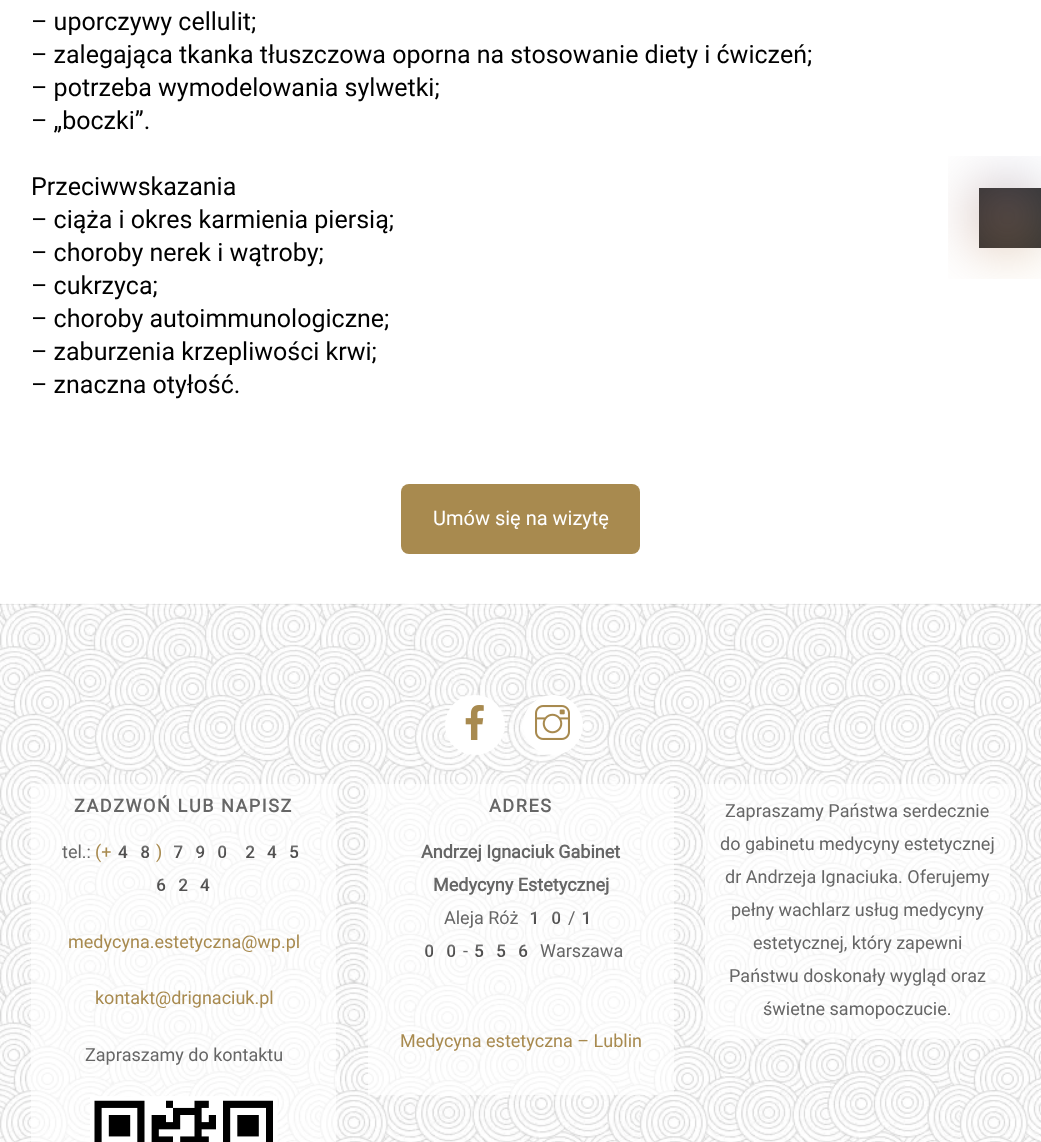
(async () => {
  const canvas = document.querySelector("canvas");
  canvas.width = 1041;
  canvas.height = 1142;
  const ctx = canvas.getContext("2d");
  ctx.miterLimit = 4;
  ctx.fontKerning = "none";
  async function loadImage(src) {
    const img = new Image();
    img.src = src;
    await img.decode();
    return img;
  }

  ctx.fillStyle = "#ffffff";
  ctx.fillRect(0, 0, 1041, 1142);
  ctx.fillStyle = "#a88a4f";
  ctx.beginPath();
  ctx.roundRect(401, 484, 239, 70, 8);
  ctx.fill();
  ctx.drawImage(await loadImage("img/1.png"), 0, 603, 1041, 539);
  ctx.fillStyle = "rgba(0, 0, 0, 0.05)";
  ctx.fillRect(0, 604, 1041, 1);
  ctx.fillStyle = "#ffffff";
  ctx.beginPath();
  ctx.arc(475, 725, 30, 0, Math.PI * 2);
  ctx.fill();
  ctx.drawImage(await loadImage("img/2.png"), 465, 705, 19, 35);
  ctx.beginPath();
  ctx.arc(553, 725, 30, 0, Math.PI * 2);
  ctx.fill();
  ctx.drawImage(await loadImage("img/3.png"), 535, 705, 35, 35);
  ctx.fillStyle = "rgba(255, 255, 255, 0.67)";
  ctx.fillRect(31, 784, 305, 358);
  ctx.drawImage(await loadImage("img/4.png"), 90, 1096, 188, 46);
  for (const [x, y, w, h, color] of [
    [368, 784, 306, 311, "rgba(255, 255, 255, 0.67)"],
    [705, 784, 305, 255, "rgba(255, 255, 255, 0.67)"],
    [979, 188, 62, 60, "#333333"],
  ]) {
    ctx.fillStyle = color;
    ctx.fillRect(x, y, w, h);
  }
  ctx.drawImage(await loadImage("img/5.png"), 948, 156, 93, 123);
  ctx.font = "25px Roboto";
  ctx.fillStyle = "#000000";
  for (const [text, x, y] of [
    ["– uporczywy cellulit;", 31, 30],
    ["– zalegająca tkanka tłuszczowa oporna na stosowanie diety i ćwiczeń;", 31, 63],
    ["– potrzeba wymodelowania sylwetki;", 31, 96],
    ["– „boczki”.", 31, 129],
    ["Przeciwwskazania", 31, 195],
    ["– ciąża i okres karmienia piersią;", 31, 228],
    ["– choroby nerek i wątroby;", 31, 261],
    ["– cukrzyca;", 31, 294],
    ["– choroby autoimmunologiczne;", 31, 327],
    ["– zaburzenia krzepliwości krwi;", 31, 360],
    ["– znaczna otyłość.", 31, 393],
  ]) {
    ctx.fillText(text, x, y);
  }
  ctx.font = "20px Roboto";
  ctx.fillStyle = "#ffffff";
  ctx.fillText("Umów się na wizytę", 433, 525);
  ctx.letterSpacing = "1.6px";
  ctx.font = "bold 18px Roboto";
  ctx.fillStyle = "#666666";
  ctx.fillText("ZADZWOŃ LUB NAPISZ", 74, 812);
  ctx.letterSpacing = "0px";
  ctx.font = "18px Roboto";
  ctx.fillText("tel.:", 62, 858);
  ctx.fillStyle = "#a88a4f";
  ctx.fillText("(+", 95, 858);
  ctx.font = "18px Noto Color Emoji";
  ctx.fillText("48", 112, 858);
  ctx.font = "18px Roboto";
  ctx.fillText(")", 156, 858);
  ctx.font = "18px Noto Color Emoji";
  for (const [text, x, y] of [
    ["790", 167, 858],
    ["245", 239, 858],
    ["624", 150, 891],
  ]) {
    ctx.fillText(text, x, y);
  }
  ctx.font = "18px Roboto";
  ctx.fillText("medycyna.estetyczna@wp.pl", 68, 948);
  ctx.fillText("kontakt@drignaciuk.pl", 95, 1004);
  ctx.fillStyle = "#666666";
  ctx.fillText("Zapraszamy do kontaktu", 85, 1061);
  ctx.letterSpacing = "1.6px";
  ctx.font = "bold 18px Roboto";
  ctx.fillText("ADRES", 489, 812);
  ctx.letterSpacing = "0px";
  ctx.fillText("Andrzej Ignaciuk Gabinet", 421, 858);
  ctx.fillText("Medycyny Estetycznej", 433, 891);
  ctx.font = "18px Roboto";
  ctx.fillText("Aleja Róż", 444, 924);
  ctx.font = "18px Noto Color Emoji";
  ctx.fillText("10", 523, 924);
  ctx.font = "18px Roboto";
  ctx.fillText("/", 568, 924);
  ctx.font = "18px Noto Color Emoji";
  ctx.fillText("1", 575, 924);
  ctx.fillText("00", 418, 957);
  ctx.font = "18px Roboto";
  ctx.fillText("-", 463, 957);
  ctx.font = "18px Noto Color Emoji";
  ctx.fillText("556", 468, 957);
  ctx.font = "18px Roboto";
  ctx.fillText("Warszawa", 540, 957);
  ctx.fillStyle = "#a88a4f";
  ctx.fillText("Medycyna estetyczna – Lublin", 400, 1047);
  ctx.fillStyle = "#666666";
  for (const [text, x, y] of [
    ["Zapraszamy Państwa serdecznie", 725, 817],
    ["do gabinetu medycyny estetycznej", 720, 850],
    ["dr Andrzeja Ignaciuka. Oferujemy", 725, 883],
    ["pełny wachlarz usług medycyny", 731, 916],
    ["estetycznej, który zapewni", 753, 949],
    ["Państwu doskonały wygląd oraz", 729, 982],
    ["świetne samopoczucie.", 763, 1015],
  ]) {
    ctx.fillText(text, x, y);
  }
})();
